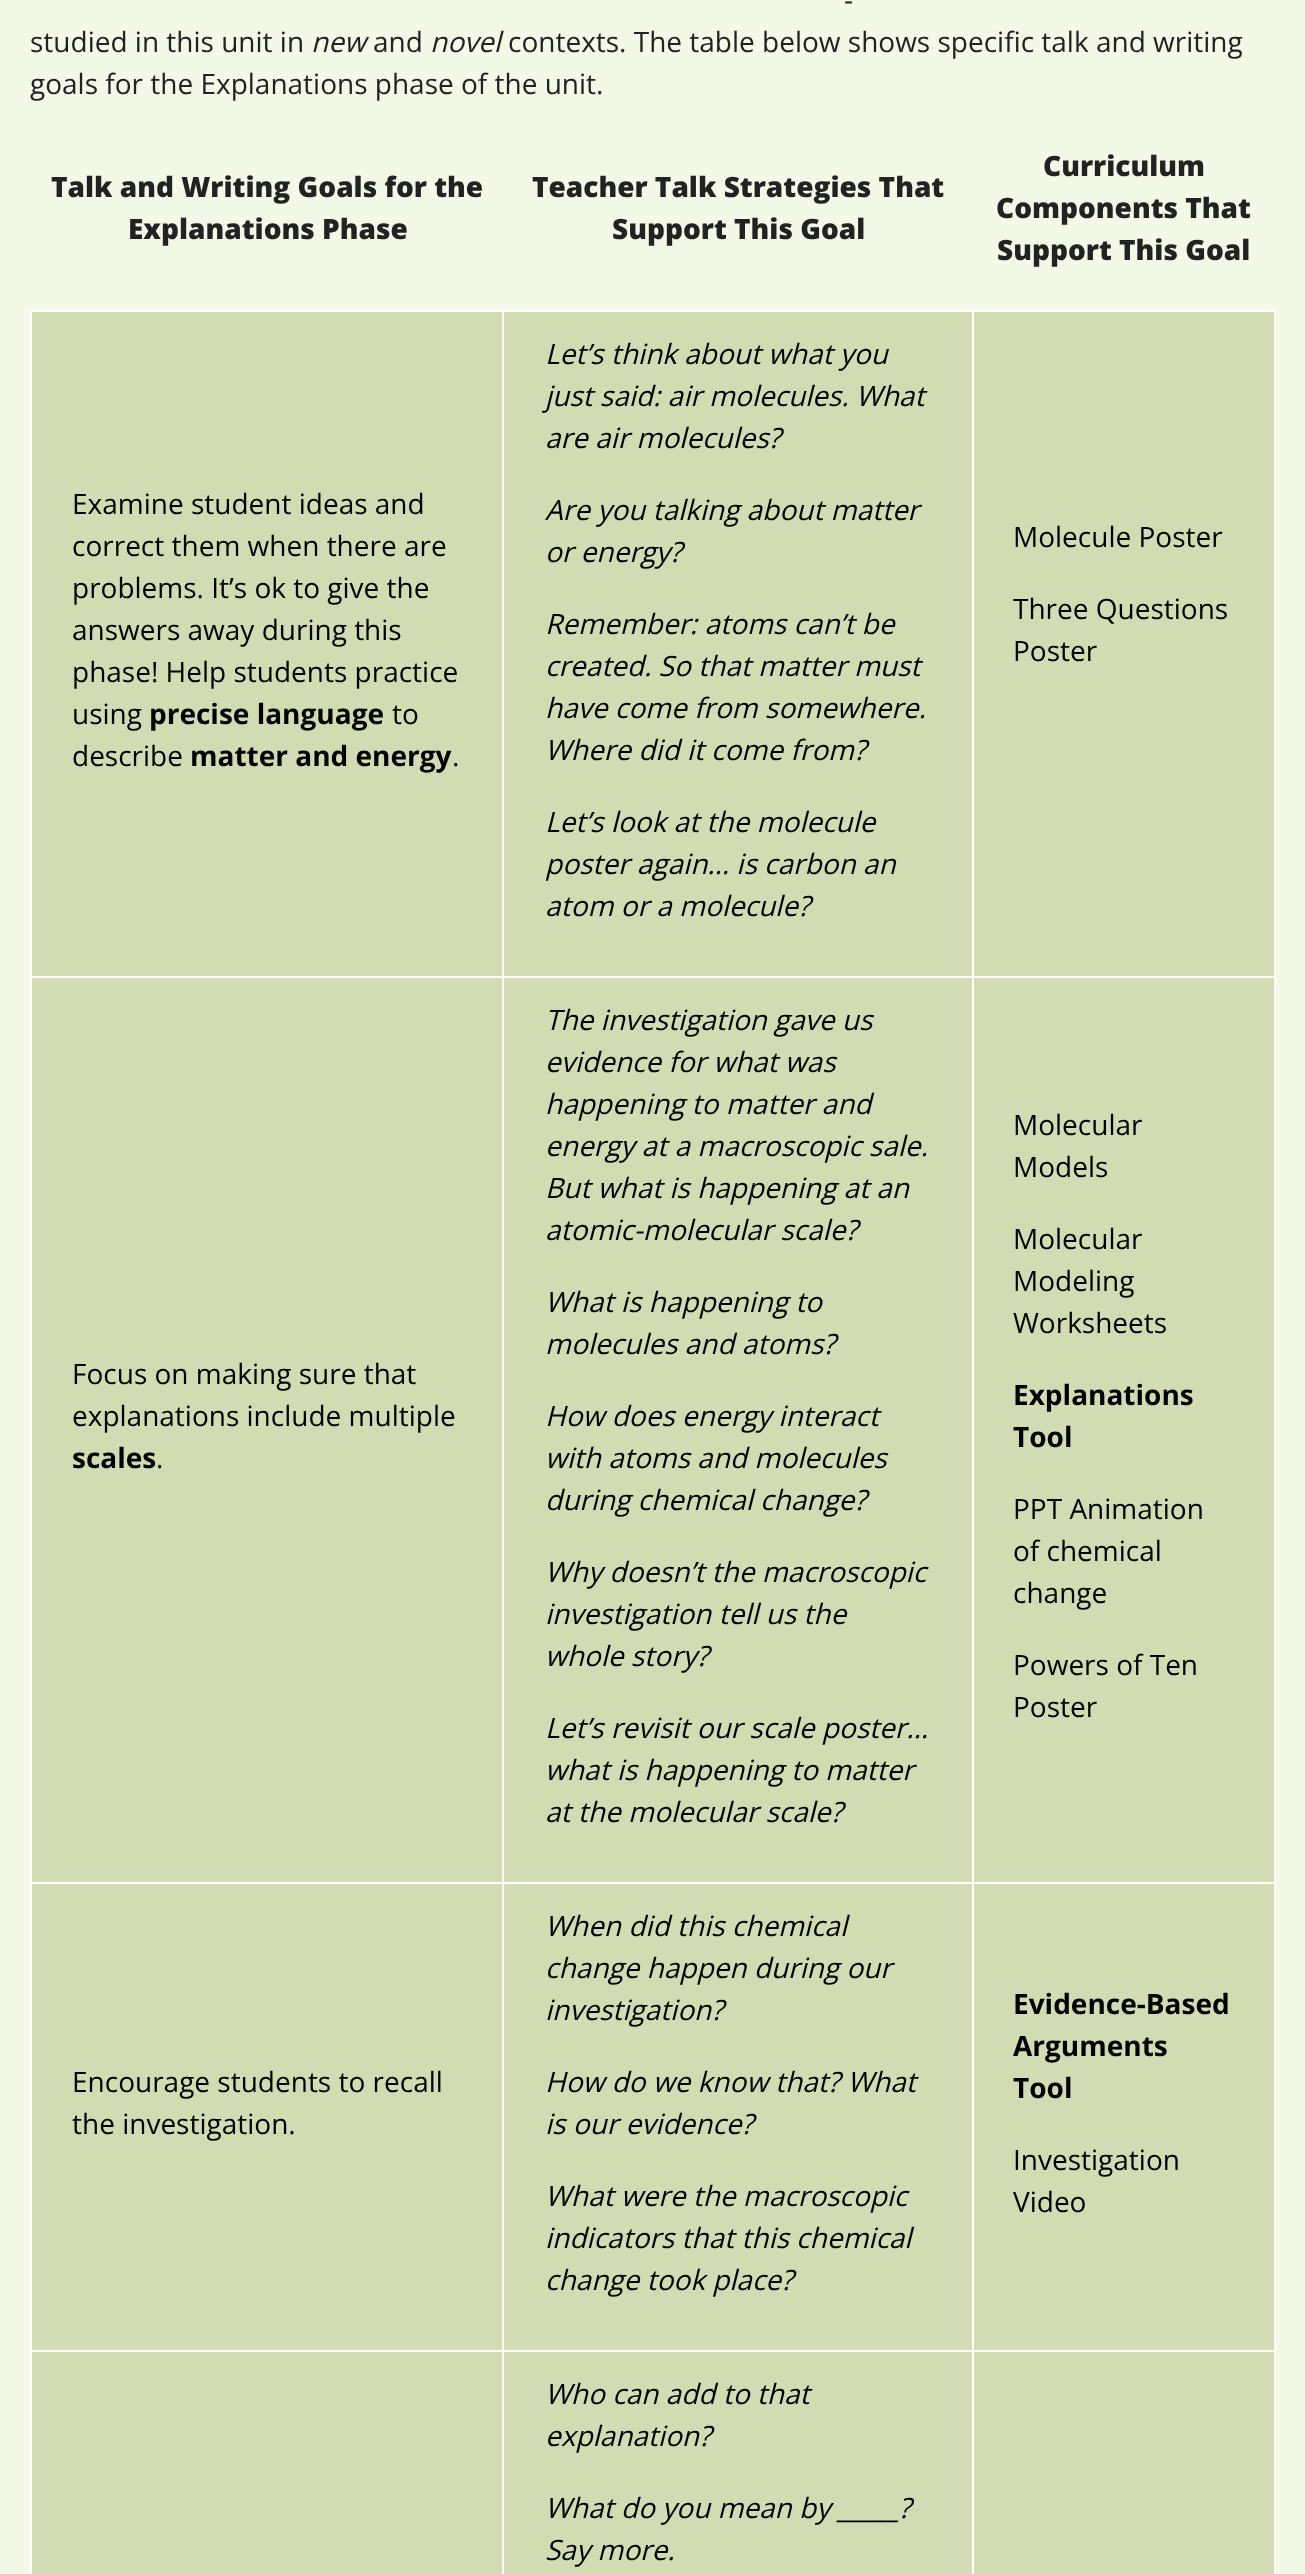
(async () => {
  const canvas = document.querySelector("canvas");
  canvas.width = 1305;
  canvas.height = 2574;
  const ctx = canvas.getContext("2d");
  ctx.miterLimit = 4;
  ctx.fontKerning = "normal";

  ctx.fillStyle = "#f4f8e7";
  ctx.fillRect(0, 0, 1305, 2574);
  for (const [x, y, w, h, color] of [
    [32, 312, 470, 664, "#d3dbb2"],
    [972, 310, 304, 2, "#ffffff"],
    [972, 976, 304, 2, "#ffffff"],
    [972, 1882, 304, 2, "#ffffff"],
    [972, 2350, 304, 2, "#ffffff"],
    [972, 2350, 2, 224, "#ffffff"],
    [502, 2350, 472, 2, "#ffffff"],
    [972, 1882, 2, 470, "#ffffff"],
    [502, 1882, 472, 2, "#ffffff"],
    [972, 976, 2, 908, "#ffffff"],
    [502, 976, 472, 2, "#ffffff"],
    [972, 310, 2, 668, "#ffffff"],
    [502, 310, 472, 2, "#ffffff"],
    [502, 2350, 2, 224, "#ffffff"],
    [30, 2350, 474, 2, "#ffffff"],
    [502, 1882, 2, 470, "#ffffff"],
    [30, 1882, 474, 2, "#ffffff"],
    [502, 976, 2, 908, "#ffffff"],
    [30, 976, 474, 2, "#ffffff"],
    [502, 310, 2, 668, "#ffffff"],
    [30, 310, 474, 2, "#ffffff"],
    [30, 2350, 2, 224, "#ffffff"],
    [30, 1882, 2, 470, "#ffffff"],
    [30, 976, 2, 908, "#ffffff"],
    [30, 310, 2, 668, "#ffffff"],
    [504, 312, 468, 664, "#d3dbb2"],
    [974, 312, 300, 664, "#d3dbb2"],
    [1274, 2350, 2, 224, "#ffffff"],
    [1274, 1882, 2, 470, "#ffffff"],
    [1274, 976, 2, 908, "#ffffff"],
    [1274, 310, 2, 668, "#ffffff"],
    [32, 978, 470, 904, "#d3dbb2"],
    [504, 978, 468, 904, "#d3dbb2"],
    [974, 978, 300, 904, "#d3dbb2"],
    [32, 1884, 470, 466, "#d3dbb2"],
    [504, 1884, 468, 466, "#d3dbb2"],
    [974, 1884, 300, 466, "#d3dbb2"],
    [32, 2352, 470, 222, "#d3dbb2"],
    [504, 2352, 468, 222, "#d3dbb2"],
    [974, 2352, 300, 222, "#d3dbb2"],
  ]) {
    ctx.fillStyle = color;
    ctx.fillRect(x, y, w, h);
  }
  ctx.font = "28px Open Sans";
  ctx.fillStyle = "#222222";
  ctx.fillText("-", 844, 10);
  ctx.fillText("studied in this unit in", 30, 52);
  ctx.font = "italic 28px Open Sans";
  ctx.fillText("new", 311, 52);
  ctx.font = "28px Open Sans";
  ctx.fillText("and", 373, 52);
  ctx.font = "italic 28px Open Sans";
  ctx.fillText("novel", 430, 52);
  ctx.font = "28px Open Sans";
  ctx.fillText("contexts. The table below shows specific talk and writing", 508, 52);
  ctx.fillText("goals for the Explanations phase of the unit.", 30, 94);
  ctx.font = "800 28px Open Sans";
  for (const [text, x, y] of [
    ["Talk and Writing Goals for the", 51, 197],
    ["Explanations Phase", 128, 239],
    ["Teacher Talk Strategies That", 532, 197],
    ["Support This Goal", 612, 239],
    ["Curriculum", 1043, 176],
    ["Components That", 996, 218],
    ["Support This Goal", 997, 260],
  ]) {
    ctx.fillText(text, x, y);
  }
  ctx.font = "28px Open Sans";
  ctx.fillStyle = "#000000";
  for (const [text, x, y] of [
    ["Examine student ideas and", 72, 514],
    ["correct them when there are", 72, 556],
    ["problems. It’s ok to give the", 72, 598],
    ["answers away during this", 72, 640],
    ["phase! Help students practice", 72, 682],
    ["using", 72, 724],
  ]) {
    ctx.fillText(text, x, y);
  }
  ctx.font = "bold 28px Open Sans";
  ctx.fillText("precise language", 149, 724);
  ctx.font = "28px Open Sans";
  ctx.fillText("to", 392, 724);
  ctx.fillText("describe", 72, 766);
  ctx.font = "bold 28px Open Sans";
  ctx.fillText("matter and energy", 190, 766);
  ctx.font = "28px Open Sans";
  ctx.fillText(".", 452, 766);
  ctx.font = "italic 28px Open Sans";
  for (const [text, x, y] of [
    ["Let’s think about what you", 545, 364],
    ["just said: air molecules. What", 545, 406],
    ["are air molecules?", 545, 448],
    ["Are you talking about matter", 545, 520],
    ["or energy?", 545, 562],
    ["Remember: atoms can’t be", 545, 634],
    ["created. So that matter must", 545, 676],
    ["have come from somewhere.", 545, 718],
    ["Where did it come from?", 545, 760],
    ["Let’s look at the molecule", 545, 832],
    ["poster again… is carbon an", 545, 874],
    ["atom or a molecule?", 545, 916],
  ]) {
    ctx.fillText(text, x, y);
  }
  ctx.font = "28px Open Sans";
  for (const [text, x, y] of [
    ["Molecule Poster", 1013, 547],
    ["Three Questions", 1013, 619],
    ["Poster", 1013, 661],
    ["Focus on making sure that", 72, 1384],
    ["explanations include multiple", 72, 1426],
  ]) {
    ctx.fillText(text, x, y);
  }
  ctx.font = "bold 28px Open Sans";
  ctx.fillText("scales", 72, 1468);
  ctx.font = "28px Open Sans";
  ctx.fillText(".", 156, 1468);
  ctx.font = "italic 28px Open Sans";
  for (const [text, x, y] of [
    ["The investigation gave us", 545, 1030],
    ["evidence for what was", 545, 1072],
    ["happening to matter and", 545, 1114],
    ["energy at a macroscopic sale.", 545, 1156],
    ["But what is happening at an", 545, 1198],
    ["atomic-molecular scale?", 545, 1240],
    ["What is happening to", 545, 1312],
    ["molecules and atoms?", 545, 1354],
    ["How does energy interact", 545, 1426],
    ["with atoms and molecules", 545, 1468],
    ["during chemical change?", 545, 1510],
    ["Why doesn’t the macroscopic", 545, 1582],
    ["investigation tell us the", 545, 1624],
    ["whole story?", 545, 1666],
    ["Let’s revisit our scale poster…", 545, 1738],
    ["what is happening to matter", 545, 1780],
    ["at the molecular scale?", 545, 1822],
  ]) {
    ctx.fillText(text, x, y);
  }
  ctx.font = "28px Open Sans";
  for (const [text, x, y] of [
    ["Molecular", 1013, 1135],
    ["Models", 1013, 1177],
    ["Molecular", 1013, 1249],
    ["Modeling", 1013, 1291],
    ["Worksheets", 1013, 1333],
  ]) {
    ctx.fillText(text, x, y);
  }
  ctx.font = "bold 28px Open Sans";
  ctx.fillText("Explanations", 1013, 1405);
  ctx.fillText("Tool", 1013, 1447);
  ctx.font = "28px Open Sans";
  for (const [text, x, y] of [
    ["PPT Animation", 1013, 1519],
    ["of chemical", 1013, 1561],
    ["change", 1013, 1603],
    ["Powers of Ten", 1013, 1675],
    ["Poster", 1013, 1717],
    ["Encourage students to recall", 72, 2092],
    ["the investigation.", 72, 2134],
  ]) {
    ctx.fillText(text, x, y);
  }
  ctx.font = "italic 28px Open Sans";
  for (const [text, x, y] of [
    ["When did this chemical", 545, 1936],
    ["change happen during our", 545, 1978],
    ["investigation?", 545, 2020],
    ["How do we know that? What", 545, 2092],
    ["is our evidence?", 545, 2134],
    ["What were the macroscopic", 545, 2206],
    ["indicators that this chemical", 545, 2248],
    ["change took place?", 545, 2290],
  ]) {
    ctx.fillText(text, x, y);
  }
  ctx.font = "bold 28px Open Sans";
  for (const [text, x, y] of [
    ["Evidence-Based", 1013, 2014],
    ["Arguments", 1013, 2056],
    ["Tool", 1013, 2098],
  ]) {
    ctx.fillText(text, x, y);
  }
  ctx.font = "28px Open Sans";
  ctx.fillText("Investigation", 1013, 2170);
  ctx.fillText("Video", 1013, 2212);
  ctx.font = "italic 28px Open Sans";
  for (const [text, x, y] of [
    ["Who can add to that", 545, 2404],
    ["explanation?", 545, 2446],
    ["What do you mean by _____?", 545, 2518],
    ["Say more.", 545, 2560],
  ]) {
    ctx.fillText(text, x, y);
  }
})();
